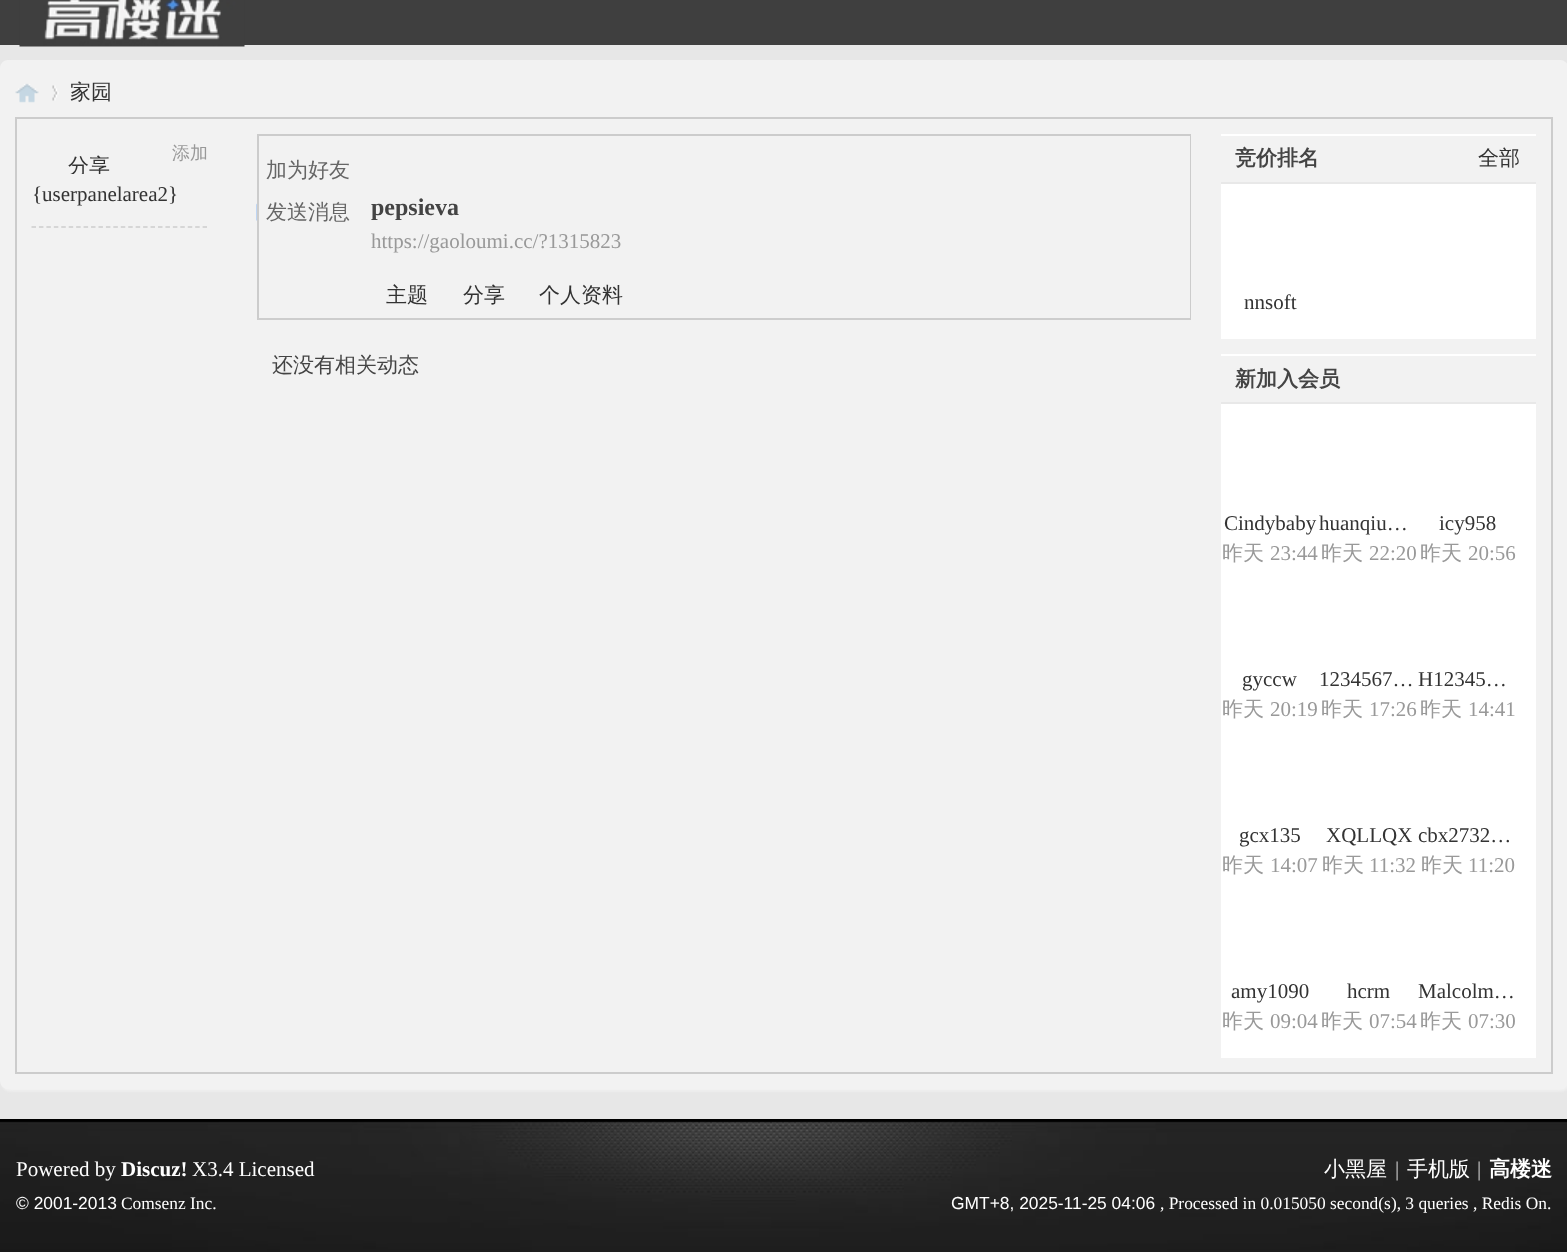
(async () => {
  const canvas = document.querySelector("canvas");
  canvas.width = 1567;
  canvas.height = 1252;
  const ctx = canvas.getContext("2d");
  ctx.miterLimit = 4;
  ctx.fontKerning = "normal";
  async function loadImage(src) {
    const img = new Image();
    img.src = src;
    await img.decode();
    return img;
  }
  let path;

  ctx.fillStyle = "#e7e7e7";
  ctx.fillRect(0, 0, 1567, 1252);
  ctx.fillStyle = "#3f3f3f";
  ctx.fillRect(0, 0, 1567, 45);
  ctx.drawImage(await loadImage("img/1.png"), 19, 0, 226, 47);
  ctx.fillStyle = "#f2f2f2";
  ctx.filter = "blur(1.5px)";
  ctx.beginPath();
  ctx.roundRect(2, 62, 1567, 1029, 8);
  ctx.fill();
  ctx.filter = "none";
  ctx.beginPath();
  ctx.roundRect(0, 60, 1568, 1029, 8);
  ctx.fill();
  ctx.drawImage(await loadImage("img/2.png"), 15, 83, 24, 20);
  ctx.drawImage(await loadImage("img/3.png"), 52, 85, 7, 16);
  ctx.strokeStyle = "#cccccc";
  ctx.lineWidth = 2;
  ctx.strokeRect(16, 118, 1536, 955);
  path = new Path2D("M31.5 227H207");
  ctx.strokeStyle = "#cdcdcd";
  ctx.lineWidth = 1.5;
  ctx.setLineDash([4.5, 2.94]);
  ctx.stroke(path);
  for (const [x, y, w, h, color] of [
    [257, 134, 934, 2, "#cccccc"],
    [1190, 134, 1, 186, "#cccccc"],
    [257, 134, 2, 186, "#cccccc"],
  ]) {
    ctx.fillStyle = color;
    ctx.fillRect(x, y, w, h);
  }
  ctx.drawImage(await loadImage("img/4.png"), 256, 203, 1, 18);
  for (const [x, y, w, h, color] of [
    [258, 318, 932, 2, "#cdcdcd"],
    [1221, 184, 315, 155, "#ffffff"],
    [1221, 134, 315, 2, "#ffffff"],
    [1221, 182, 315, 2, "#e8e8e8"],
    [1221, 404, 315, 654, "#ffffff"],
    [1221, 354, 315, 2, "#ffffff"],
    [1221, 402, 315, 2, "#e8e8e8"],
  ]) {
    ctx.fillStyle = color;
    ctx.fillRect(x, y, w, h);
  }
  ctx.drawImage(await loadImage("img/5.png"), 0, 1121, 1567, 131);
  ctx.fillStyle = "#000000";
  ctx.fillRect(0, 1119, 1567, 2);
  ctx.font = "500 21px WenQuanYi Zen Hei";
  ctx.fillStyle = "#333333";
  ctx.fillText("家园", 70, 99);
  ctx.font = "500 18px WenQuanYi Zen Hei";
  ctx.fillStyle = "#999999";
  ctx.fillText("添加", 172, 159);
  ctx.save();
  ctx.beginPath();
  ctx.rect(32, 132, 175, 42);
  ctx.clip();
  ctx.font = "500 21px WenQuanYi Zen Hei";
  ctx.fillStyle = "#333333";
  ctx.fillText("分享", 68, 173);
  ctx.restore();
  ctx.font = "21px Liberation Serif";
  ctx.fillStyle = "#333333";
  ctx.fillText("{userpanelarea2}", 32, 201);
  ctx.font = "500 21px WenQuanYi Zen Hei";
  ctx.fillStyle = "#666666";
  ctx.fillText("加为好友", 266, 177);
  ctx.fillText("发送消息", 266, 219);
  ctx.font = "bold 24px Liberation Serif";
  ctx.fillStyle = "#444444";
  ctx.fillText("pepsieva", 371, 215);
  ctx.font = "21px Liberation Serif";
  ctx.fillStyle = "#999999";
  ctx.fillText("https://gaoloumi.cc/?1315823", 371, 248);
  ctx.font = "500 21px WenQuanYi Zen Hei";
  ctx.fillStyle = "#333333";
  for (const [text, x, y] of [
    ["主题", 386, 302],
    ["分享", 463, 302],
    ["个人资料", 539, 302],
  ]) {
    ctx.fillText(text, x, y);
  }
  ctx.fillStyle = "#444444";
  ctx.fillText("还没有相关动态", 272, 372);
  ctx.font = "bold 21px WenQuanYi Zen Hei";
  ctx.fillText("竞价排名", 1235, 165);
  ctx.font = "500 21px WenQuanYi Zen Hei";
  ctx.fillStyle = "#333333";
  ctx.fillText("全部", 1478, 165);
  ctx.font = "21px Liberation Serif";
  ctx.fillText("nnsoft", 1244, 309);
  ctx.font = "bold 21px WenQuanYi Zen Hei";
  ctx.fillStyle = "#444444";
  ctx.fillText("新加入会员", 1235, 386);
  ctx.font = "21px Liberation Serif";
  ctx.fillStyle = "#333333";
  ctx.fillText("Cindybaby", 1224, 530);
  ctx.font = "500 21px WenQuanYi Zen Hei";
  ctx.fillStyle = "#999999";
  ctx.fillText("昨天", 1222, 560);
  ctx.font = "21px Liberation Serif";
  ctx.fillText("23:44", 1270, 560);
  ctx.fillStyle = "#333333";
  ctx.fillText("huanqiu…", 1319, 530);
  ctx.font = "500 21px WenQuanYi Zen Hei";
  ctx.fillStyle = "#999999";
  ctx.fillText("昨天", 1321, 560);
  ctx.font = "21px Liberation Serif";
  ctx.fillText("22:20", 1369, 560);
  ctx.fillStyle = "#333333";
  ctx.fillText("icy958", 1439, 530);
  ctx.font = "500 21px WenQuanYi Zen Hei";
  ctx.fillStyle = "#999999";
  ctx.fillText("昨天", 1420, 560);
  ctx.font = "21px Liberation Serif";
  ctx.fillText("20:56", 1468, 560);
  ctx.fillStyle = "#333333";
  ctx.fillText("gyccw", 1242, 686);
  ctx.font = "500 21px WenQuanYi Zen Hei";
  ctx.fillStyle = "#999999";
  ctx.fillText("昨天", 1222, 716);
  ctx.font = "21px Liberation Serif";
  ctx.fillText("20:19", 1270, 716);
  ctx.fillStyle = "#333333";
  ctx.fillText("1234567…", 1319, 686);
  ctx.font = "500 21px WenQuanYi Zen Hei";
  ctx.fillStyle = "#999999";
  ctx.fillText("昨天", 1321, 716);
  ctx.font = "21px Liberation Serif";
  ctx.fillText("17:26", 1369, 716);
  ctx.fillStyle = "#333333";
  ctx.fillText("H12345…", 1418, 686);
  ctx.font = "500 21px WenQuanYi Zen Hei";
  ctx.fillStyle = "#999999";
  ctx.fillText("昨天", 1420, 716);
  ctx.font = "21px Liberation Serif";
  ctx.fillText("14:41", 1468, 716);
  ctx.fillStyle = "#333333";
  ctx.fillText("gcx135", 1239, 842);
  ctx.font = "500 21px WenQuanYi Zen Hei";
  ctx.fillStyle = "#999999";
  ctx.fillText("昨天", 1222, 872);
  ctx.font = "21px Liberation Serif";
  ctx.fillText("14:07", 1270, 872);
  ctx.fillStyle = "#333333";
  ctx.fillText("XQLLQX", 1326, 842);
  ctx.font = "500 21px WenQuanYi Zen Hei";
  ctx.fillStyle = "#999999";
  ctx.fillText("昨天", 1322, 872);
  ctx.font = "21px Liberation Serif";
  ctx.fillText("11:32", 1369, 872);
  ctx.fillStyle = "#333333";
  ctx.fillText("cbx2732…", 1418, 842);
  ctx.font = "500 21px WenQuanYi Zen Hei";
  ctx.fillStyle = "#999999";
  ctx.fillText("昨天", 1421, 872);
  ctx.font = "21px Liberation Serif";
  ctx.fillText("11:20", 1468, 872);
  ctx.fillStyle = "#333333";
  ctx.fillText("amy1090", 1231, 998);
  ctx.font = "500 21px WenQuanYi Zen Hei";
  ctx.fillStyle = "#999999";
  ctx.fillText("昨天", 1222, 1028);
  ctx.font = "21px Liberation Serif";
  ctx.fillText("09:04", 1270, 1028);
  ctx.fillStyle = "#333333";
  ctx.fillText("hcrm", 1347, 998);
  ctx.font = "500 21px WenQuanYi Zen Hei";
  ctx.fillStyle = "#999999";
  ctx.fillText("昨天", 1321, 1028);
  ctx.font = "21px Liberation Serif";
  ctx.fillText("07:54", 1369, 1028);
  ctx.fillStyle = "#333333";
  ctx.fillText("Malcolm…", 1418, 998);
  ctx.font = "500 21px WenQuanYi Zen Hei";
  ctx.fillStyle = "#999999";
  ctx.fillText("昨天", 1420, 1028);
  ctx.font = "21px Liberation Serif";
  ctx.fillText("07:30", 1468, 1028);
  ctx.fillStyle = "#ffffff";
  ctx.fillText("Powered by", 16, 1176);
  ctx.font = "bold 21px Liberation Serif";
  ctx.fillText("Discuz!", 121, 1176);
  ctx.font = "21px Liberation Serif";
  ctx.fillText("X3.4 Licensed", 192, 1176);
  ctx.font = "17.4px Liberation Sans";
  ctx.fillText("© 2001-2013", 16, 1209);
  ctx.font = "17.4px Liberation Serif";
  ctx.fillText("Comsenz Inc.", 121, 1209);
  ctx.font = "500 21px WenQuanYi Zen Hei";
  ctx.fillText("小黑屋", 1324, 1176);
  ctx.font = "21px Liberation Serif";
  ctx.fillStyle = "#cccccc";
  ctx.fillText("|", 1395, 1176);
  ctx.font = "500 21px WenQuanYi Zen Hei";
  ctx.fillStyle = "#ffffff";
  ctx.fillText("手机版", 1407, 1176);
  ctx.font = "21px Liberation Serif";
  ctx.fillStyle = "#cccccc";
  ctx.fillText("|", 1477, 1176);
  ctx.font = "bold 21px WenQuanYi Zen Hei";
  ctx.fillStyle = "#ffffff";
  ctx.fillText("高楼迷", 1489, 1176);
  ctx.font = "17.4px Liberation Sans";
  ctx.fillText("GMT+8, 2025-11-25 04:06", 951, 1209);
  ctx.font = "17.4px Liberation Serif";
  ctx.fillText(", Processed in 0.015050 second(s), 3 queries , Redis On.", 1160, 1209);
})();
